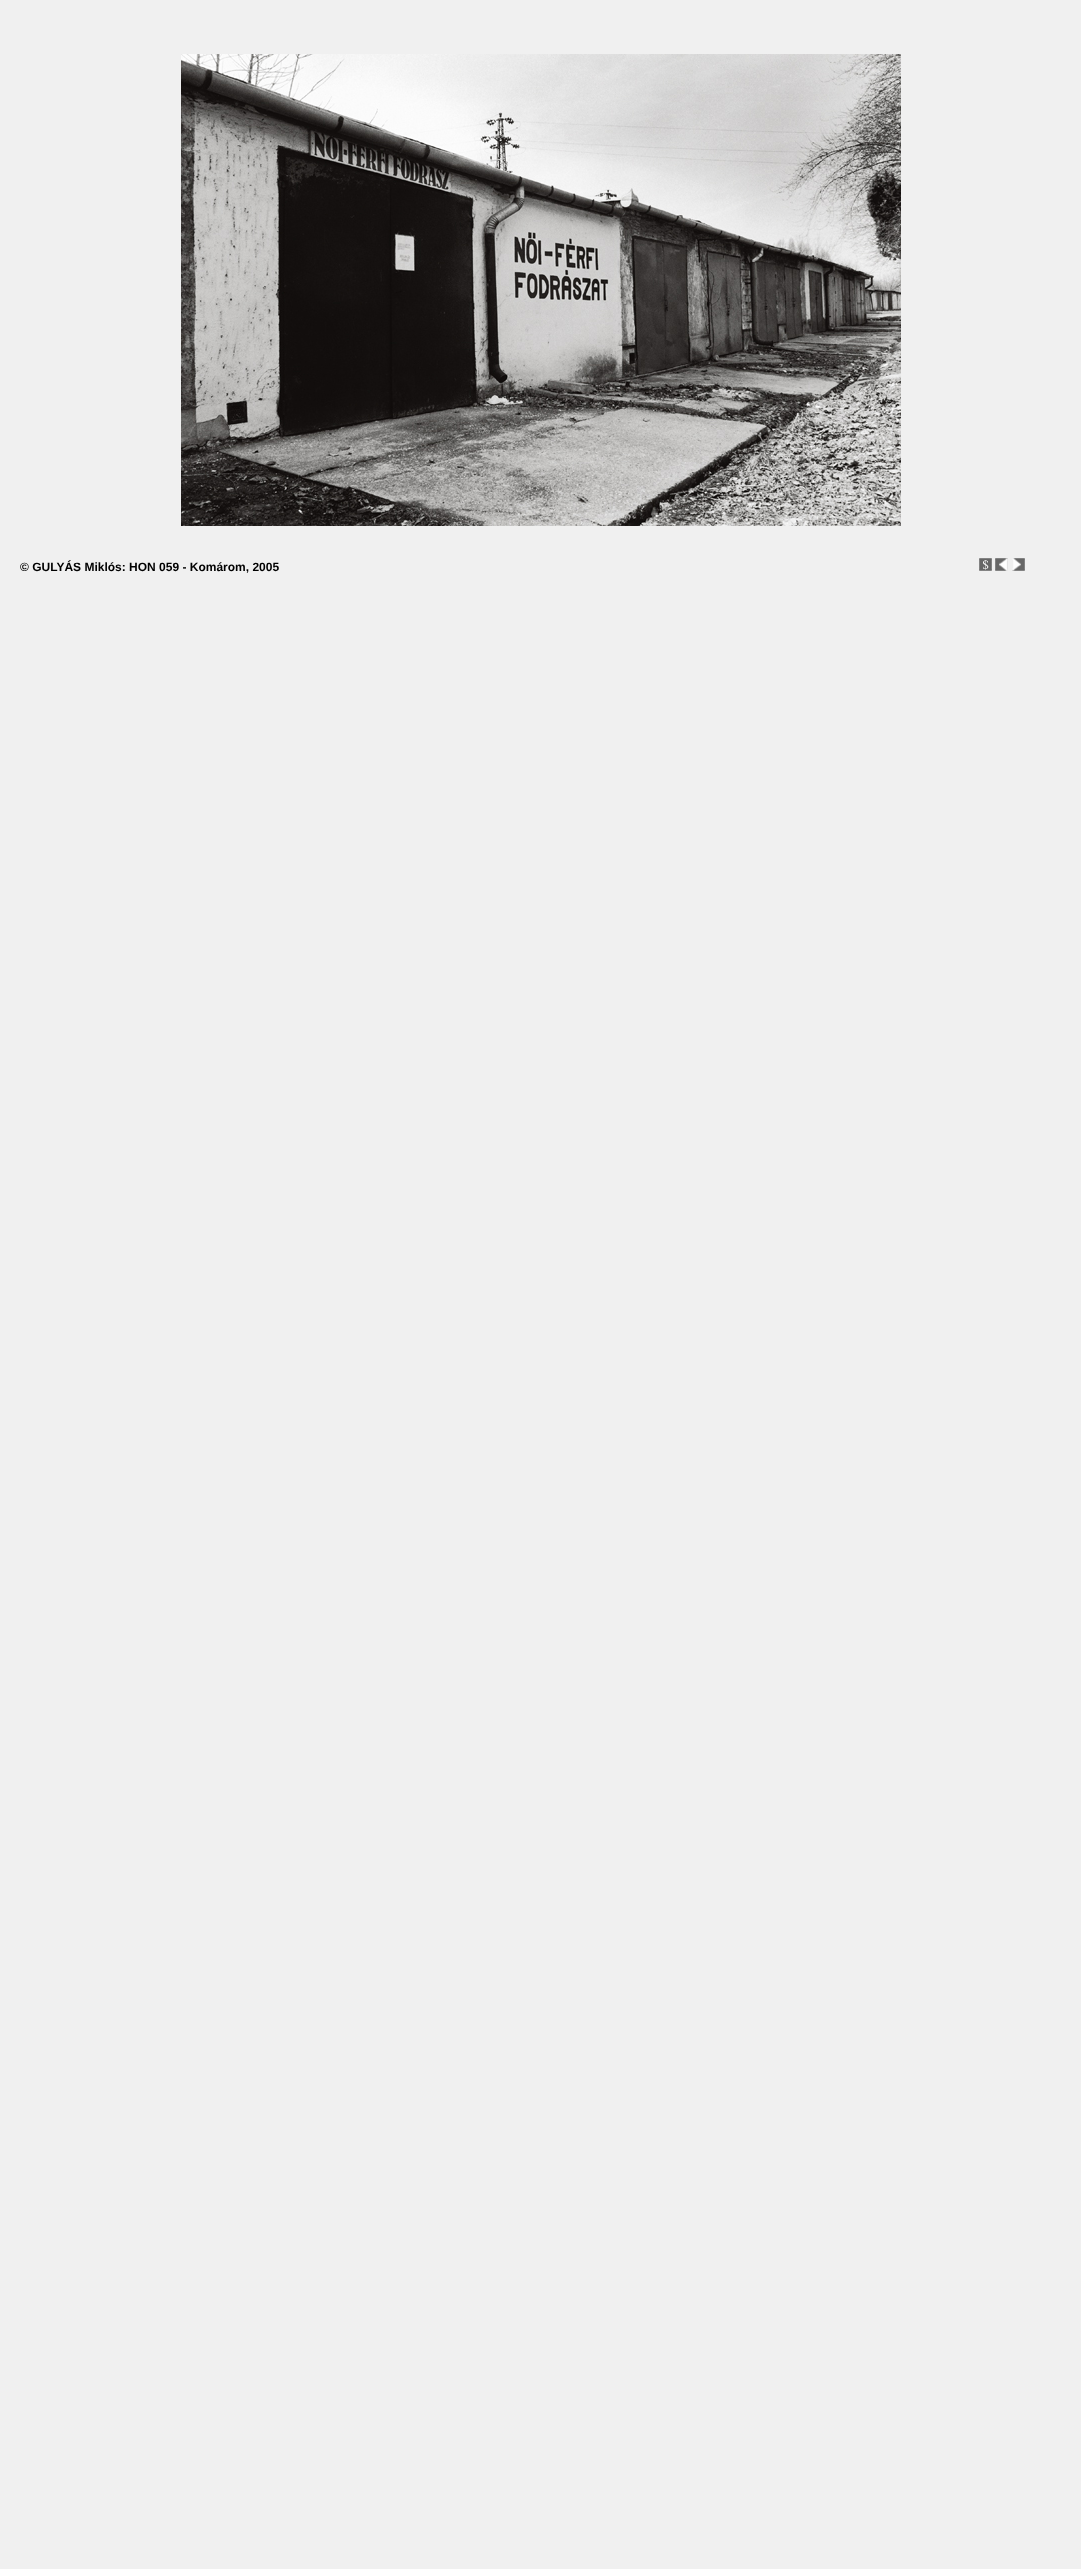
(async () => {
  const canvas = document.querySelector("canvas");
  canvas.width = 1081;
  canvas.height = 2569;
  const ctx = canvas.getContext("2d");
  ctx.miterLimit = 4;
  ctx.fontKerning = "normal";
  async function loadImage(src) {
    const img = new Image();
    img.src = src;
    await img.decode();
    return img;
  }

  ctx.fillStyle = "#f0f0f0";
  ctx.fillRect(0, 0, 1081, 2569);
  ctx.drawImage(await loadImage("img/1.png"), 181, 54, 720, 472);
  ctx.drawImage(await loadImage("img/2.png"), 979, 558, 13, 13);
  ctx.drawImage(await loadImage("img/3.png"), 995, 558, 13, 13);
  ctx.drawImage(await loadImage("img/4.png"), 1012, 558, 13, 13);
  ctx.font = "bold 12px Liberation Sans";
  ctx.fillStyle = "#000000";
  ctx.fillText("© GULYÁS Miklós: HON 059 - Komárom, 2005", 20, 571);
})();
